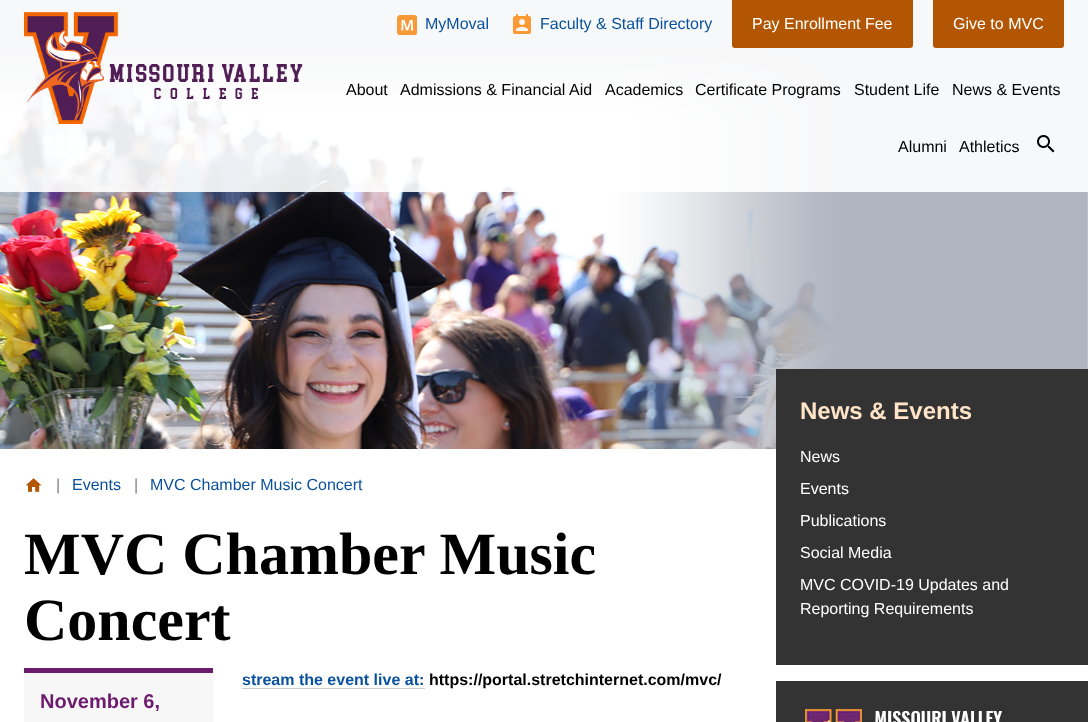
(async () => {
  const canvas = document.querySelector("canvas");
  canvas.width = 1088;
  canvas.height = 722;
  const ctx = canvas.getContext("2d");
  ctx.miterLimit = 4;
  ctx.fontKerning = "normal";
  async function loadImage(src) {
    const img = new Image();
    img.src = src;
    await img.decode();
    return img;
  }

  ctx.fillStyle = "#ffffff";
  ctx.fillRect(0, 0, 1088, 722);
  ctx.drawImage(await loadImage("img/1.png"), 0, 0, 1088, 449);
  ctx.fillStyle = "rgba(255, 255, 255, 0.9)";
  ctx.fillRect(0, 0, 1088, 192);
  ctx.drawImage(await loadImage("img/2.png"), 24, 12, 279, 112);
  ctx.drawImage(await loadImage("img/3.png"), 397, 15, 20, 20);
  ctx.drawImage(await loadImage("img/4.png"), 513, 14, 18, 20);
  ctx.fillStyle = "#b25603";
  ctx.beginPath();
  ctx.roundRect(732, 0, 181, 48, [0, 0, 3, 3]);
  ctx.fill();
  ctx.beginPath();
  ctx.roundRect(933, 0, 131, 48, [0, 0, 3, 3]);
  ctx.fill();
  ctx.drawImage(await loadImage("img/5.png"), 1037, 135, 18, 18);
  ctx.drawImage(await loadImage("img/6.png"), 25, 478, 17, 14);
  for (const [x, y, w, h, color] of [
    [242, 688, 183, 1, "#cccccc"],
    [24, 673, 189, 49, "#f7f7f7"],
    [24, 668, 189, 5, "#6d1b6f"],
    [776, 369, 312, 296, "#333333"],
    [776, 681, 312, 41, "#333333"],
  ]) {
    ctx.fillStyle = color;
    ctx.fillRect(x, y, w, h);
  }
  ctx.drawImage(await loadImage("img/7.png"), 801, 705, 203, 17);
  ctx.font = "16px Liberation Sans";
  ctx.fillStyle = "#09519c";
  ctx.fillText("MyMoval", 425, 29);
  ctx.fillText("Faculty & Staff Directory", 540, 29);
  ctx.fillStyle = "#ffffff";
  ctx.fillText("Pay Enrollment Fee", 752, 29);
  ctx.fillText("Give to MVC", 953, 29);
  ctx.fillStyle = "#000000";
  for (const [text, x, y] of [
    ["About", 346, 95],
    ["Admissions & Financial Aid", 400, 95],
    ["Academics", 605, 95],
    ["Certificate Programs", 695, 95],
    ["Student Life", 854, 95],
    ["News & Events", 952, 95],
    ["Alumni", 898, 152],
    ["Athletics", 959, 152],
  ]) {
    ctx.fillText(text, x, y);
  }
  ctx.fillStyle = "#808080";
  ctx.fillText("|", 56, 490);
  ctx.fillStyle = "#09519c";
  ctx.fillText("Events", 72, 490);
  ctx.fillStyle = "#808080";
  ctx.fillText("|", 134, 490);
  ctx.fillStyle = "#09519c";
  ctx.fillText("MVC Chamber Music Concert", 150, 490);
  ctx.font = "bold 60px Liberation Serif";
  ctx.fillStyle = "#000000";
  ctx.fillText("MVC Chamber Music", 24, 574);
  ctx.fillText("Concert", 24, 640);
  ctx.font = "bold 16px Liberation Sans";
  ctx.fillStyle = "#09519c";
  ctx.fillText("stream the event live at:", 242, 685);
  ctx.fillStyle = "#000000";
  ctx.fillText("https://portal.stretchinternet.com/mvc/", 429, 685);
  ctx.font = "bold 20px Liberation Sans";
  ctx.fillStyle = "#6d1b6f";
  ctx.fillText("November 6,", 40, 708);
  ctx.font = "bold 24px Liberation Sans";
  ctx.fillStyle = "#ffe4c7";
  ctx.fillText("News & Events", 800, 419);
  ctx.font = "16px Liberation Sans";
  ctx.fillStyle = "#ffffff";
  for (const [text, x, y] of [
    ["News", 800, 462],
    ["Events", 800, 494],
    ["Publications", 800, 526],
    ["Social Media", 800, 558],
    ["MVC COVID-19 Updates and", 800, 590],
    ["Reporting Requirements", 800, 614],
  ]) {
    ctx.fillText(text, x, y);
  }
})();
